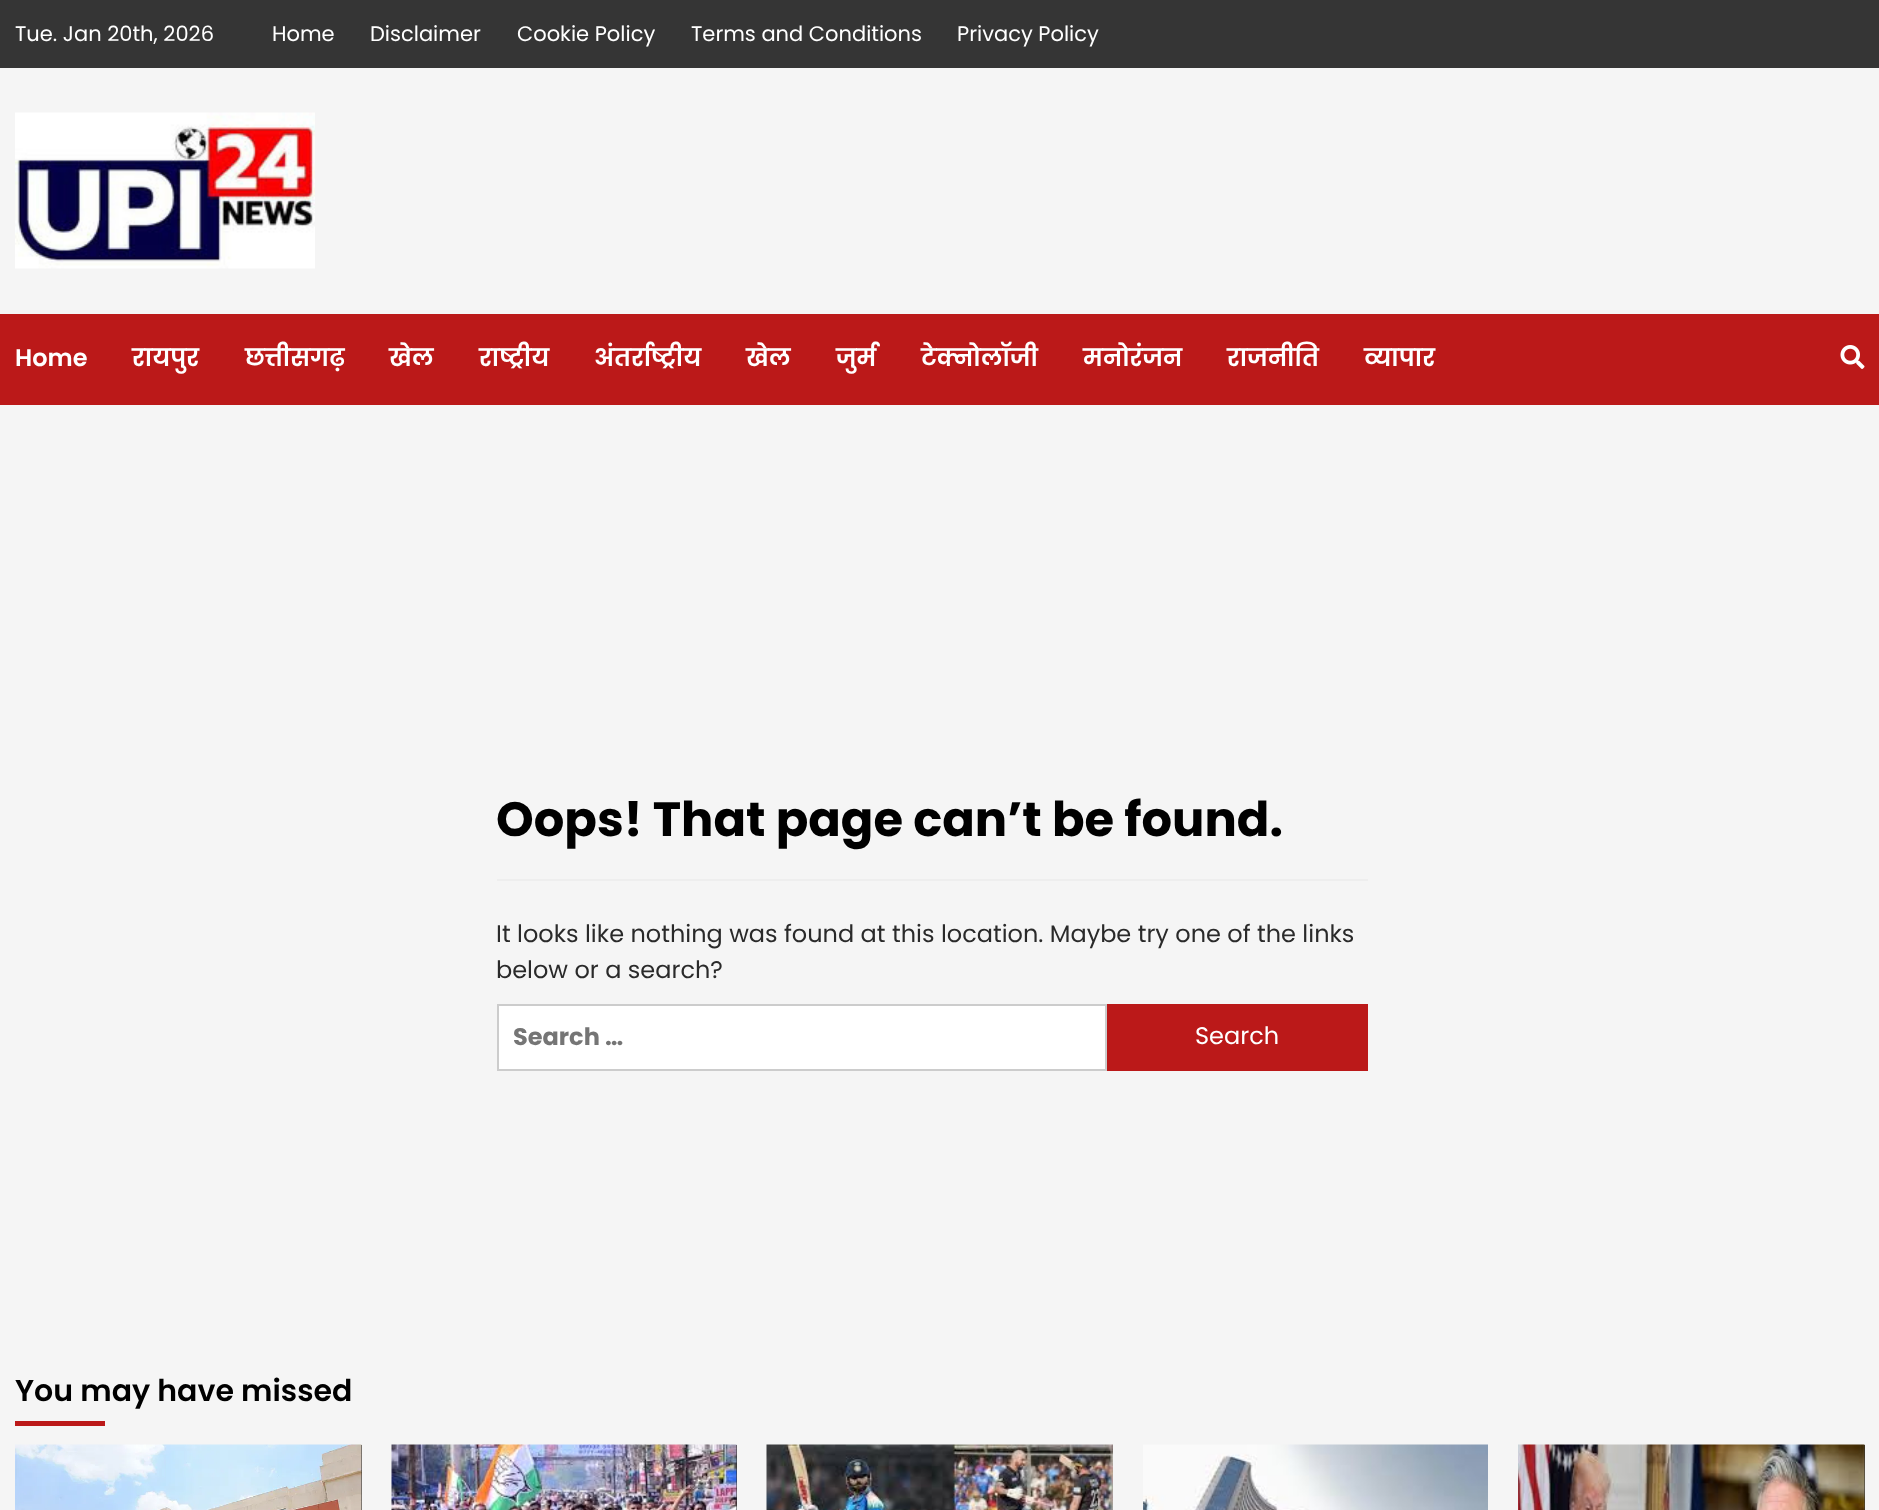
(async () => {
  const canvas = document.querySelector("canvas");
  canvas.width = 1879;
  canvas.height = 1510;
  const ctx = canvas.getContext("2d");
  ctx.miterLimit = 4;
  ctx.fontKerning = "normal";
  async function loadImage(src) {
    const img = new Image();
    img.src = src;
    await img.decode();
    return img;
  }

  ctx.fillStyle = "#f5f5f5";
  ctx.fillRect(0, 0, 1879, 1510);
  ctx.fillStyle = "#353535";
  ctx.fillRect(0, 0, 1879, 68);
  ctx.drawImage(await loadImage("img/1.png"), 15, 112, 300, 157);
  ctx.fillStyle = "#bb1919";
  ctx.fillRect(0, 314, 1879, 91);
  ctx.drawImage(await loadImage("img/2.png"), 1840, 345, 25, 24);
  ctx.fillStyle = "#eeeeee";
  ctx.fillRect(497, 879, 871, 2);
  ctx.fillStyle = "#ffffff";
  ctx.beginPath();
  ctx.rect(498, 1005, 608, 65);
  ctx.fill();
  ctx.strokeStyle = "#cccccc";
  ctx.lineWidth = 2;
  ctx.stroke();
  for (const [x, y, w, h, color] of [
    [1107, 1004, 261, 67, "#bb1919"],
    [15, 1421, 90, 5, "#bb1919"],
    [361, 1445, 1, 65, "#2a2a2a"],
  ]) {
    ctx.fillStyle = color;
    ctx.fillRect(x, y, w, h);
  }
  ctx.drawImage(await loadImage("img/3.png"), 15, 1444, 347, 66);
  ctx.fillRect(736, 1445, 1, 65);
  ctx.drawImage(await loadImage("img/4.png"), 391, 1444, 346, 66);
  ctx.drawImage(await loadImage("img/5.png"), 766, 1444, 347, 66);
  ctx.drawImage(await loadImage("img/6.png"), 1143, 1444, 345, 66);
  ctx.fillRect(1864, 1445, 1, 65);
  ctx.drawImage(await loadImage("img/7.png"), 1518, 1444, 347, 66);
  ctx.font = "21px Poppins";
  ctx.fillStyle = "#ffffff";
  for (const [text, x, y] of [
    ["Tue. Jan 20th, 2026", 15, 41],
    ["Home", 272, 41],
    ["Disclaimer", 370, 41],
    ["Cookie Policy", 517, 41],
    ["Terms and Conditions", 691, 41],
    ["Privacy Policy", 957, 41],
  ]) {
    ctx.fillText(text, x, y);
  }
  ctx.font = "600 24px Poppins";
  for (const [text, x, y] of [
    ["Home", 15, 366],
    ["रायपुर", 132, 366],
    ["छत्तीसगढ़", 245, 366],
    ["खेल", 389, 366],
    ["राष्ट्रीय", 479, 366],
    ["अंतर्राष्ट्रीय", 594, 366],
    ["खेल", 746, 366],
    ["जुर्म", 836, 366],
    ["टेक्नोलॉजी", 921, 366],
    ["मनोरंजन", 1083, 366],
    ["राजनीति", 1227, 366],
    ["व्यापार", 1364, 366],
  ]) {
    ctx.fillText(text, x, y);
  }
  ctx.font = "bold 48px Poppins";
  ctx.fillStyle = "#000000";
  ctx.fillText("Oops! That page can’t be found.", 496, 836);
  ctx.font = "24px Poppins";
  ctx.fillStyle = "#2a2a2a";
  ctx.fillText("It looks like nothing was found at this location. Maybe try one of the links", 496, 942);
  ctx.fillText("below or a search?", 496, 978);
  ctx.font = "bold 24px Poppins";
  ctx.fillStyle = "#757575";
  ctx.fillText("Search …", 513, 1045);
  ctx.font = "24px Poppins";
  ctx.fillStyle = "#ffffff";
  ctx.fillText("Search", 1195, 1044);
  ctx.font = "600 30px Poppins";
  ctx.fillStyle = "#000000";
  ctx.fillText("You may have missed", 15, 1401);
})();
